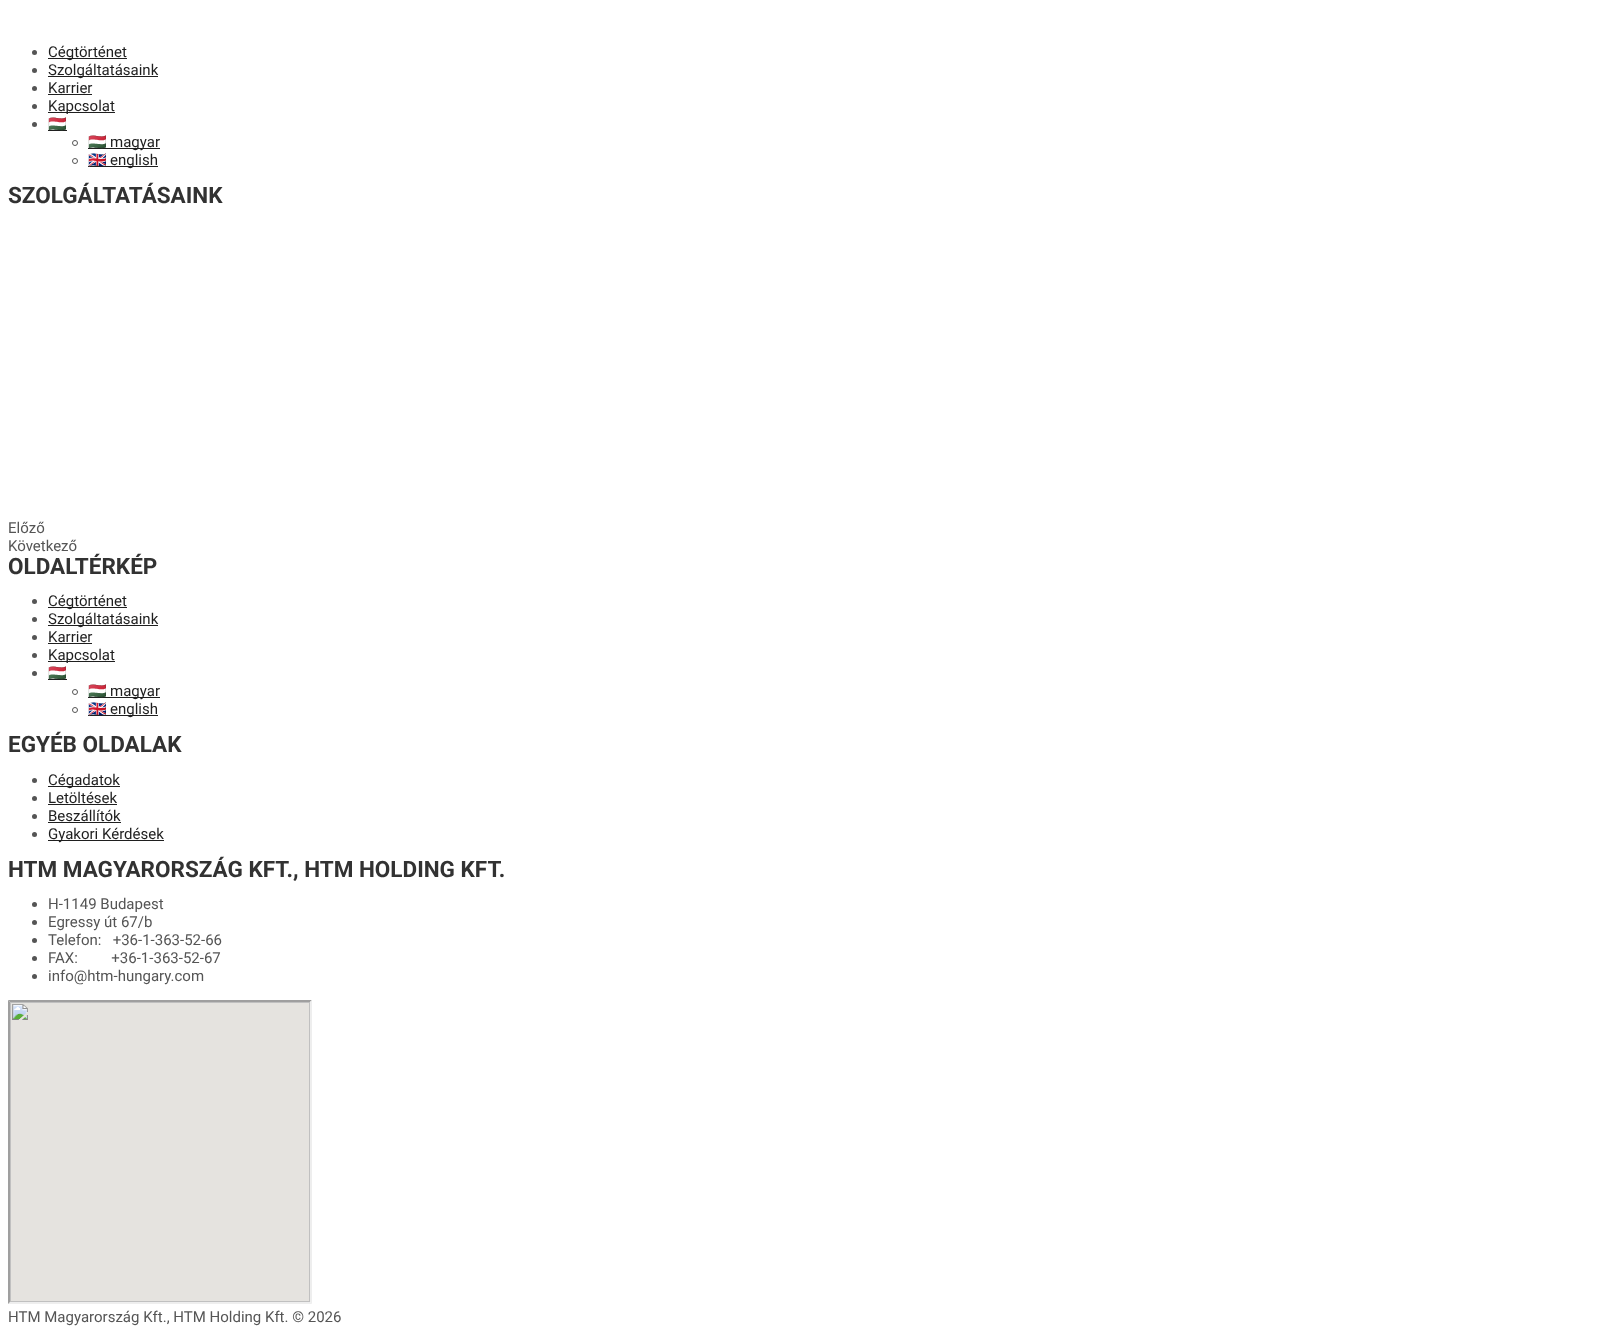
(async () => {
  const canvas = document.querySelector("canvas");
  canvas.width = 1613;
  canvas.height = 1330;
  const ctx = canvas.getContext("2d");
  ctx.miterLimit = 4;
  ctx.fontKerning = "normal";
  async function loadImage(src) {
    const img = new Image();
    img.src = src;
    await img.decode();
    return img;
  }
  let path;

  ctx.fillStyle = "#ffffff";
  ctx.fillRect(0, 0, 1613, 1330);
  ctx.fillStyle = "#555555";
  ctx.beginPath();
  ctx.arc(34.5, 52.5, 2.5, 0, Math.PI * 2);
  ctx.fill();
  ctx.fillStyle = "#1f1f1f";
  ctx.fillRect(48, 58, 79, 1);
  ctx.fillStyle = "#555555";
  ctx.beginPath();
  ctx.arc(34.5, 70.5, 2.5, 0, Math.PI * 2);
  ctx.fill();
  ctx.fillStyle = "#1f1f1f";
  ctx.fillRect(48, 76, 110, 1);
  ctx.fillStyle = "#555555";
  ctx.beginPath();
  ctx.arc(34.5, 88.5, 2.5, 0, Math.PI * 2);
  ctx.fill();
  ctx.fillStyle = "#1f1f1f";
  ctx.fillRect(48, 94, 44, 1);
  ctx.fillStyle = "#555555";
  ctx.beginPath();
  ctx.arc(34.5, 106.5, 2.5, 0, Math.PI * 2);
  ctx.fill();
  ctx.fillStyle = "#1f1f1f";
  ctx.fillRect(48, 112, 67, 1);
  ctx.fillStyle = "#555555";
  ctx.beginPath();
  ctx.arc(34.5, 124.5, 2.5, 0, Math.PI * 2);
  ctx.fill();
  ctx.fillStyle = "#1f1f1f";
  ctx.fillRect(48, 130, 19, 1);
  ctx.beginPath();
  ctx.arc(75, 143, 2.5, 0, Math.PI * 2);
  ctx.strokeStyle = "#555555";
  ctx.stroke();
  ctx.fillRect(88, 148, 72, 1);
  ctx.beginPath();
  ctx.arc(75, 161, 2.5, 0, Math.PI * 2);
  ctx.stroke();
  ctx.fillRect(88, 166, 70, 1);
  ctx.fillStyle = "#555555";
  ctx.beginPath();
  ctx.arc(34.5, 601.5, 2.5, 0, Math.PI * 2);
  ctx.fill();
  ctx.fillStyle = "#1f1f1f";
  ctx.fillRect(48, 607, 79, 1);
  ctx.fillStyle = "#555555";
  ctx.beginPath();
  ctx.arc(34.5, 619.5, 2.5, 0, Math.PI * 2);
  ctx.fill();
  ctx.fillStyle = "#1f1f1f";
  ctx.fillRect(48, 625, 110, 1);
  ctx.fillStyle = "#555555";
  ctx.beginPath();
  ctx.arc(34.5, 637.5, 2.5, 0, Math.PI * 2);
  ctx.fill();
  ctx.fillStyle = "#1f1f1f";
  ctx.fillRect(48, 643, 44, 1);
  ctx.fillStyle = "#555555";
  ctx.beginPath();
  ctx.arc(34.5, 655.5, 2.5, 0, Math.PI * 2);
  ctx.fill();
  ctx.fillStyle = "#1f1f1f";
  ctx.fillRect(48, 661, 67, 1);
  ctx.fillStyle = "#555555";
  ctx.beginPath();
  ctx.arc(34.5, 673.5, 2.5, 0, Math.PI * 2);
  ctx.fill();
  ctx.fillStyle = "#1f1f1f";
  ctx.fillRect(48, 679, 19, 1);
  ctx.beginPath();
  ctx.arc(75, 692, 2.5, 0, Math.PI * 2);
  ctx.stroke();
  ctx.fillRect(88, 697, 72, 1);
  ctx.beginPath();
  ctx.arc(75, 710, 2.5, 0, Math.PI * 2);
  ctx.stroke();
  ctx.fillRect(88, 715, 70, 1);
  ctx.fillStyle = "#555555";
  ctx.beginPath();
  ctx.arc(34.5, 780.5, 2.5, 0, Math.PI * 2);
  ctx.fill();
  ctx.fillStyle = "#1f1f1f";
  ctx.fillRect(48, 786, 72, 1);
  ctx.fillStyle = "#555555";
  ctx.beginPath();
  ctx.arc(34.5, 798.5, 2.5, 0, Math.PI * 2);
  ctx.fill();
  ctx.fillStyle = "#1f1f1f";
  ctx.fillRect(48, 804, 69, 1);
  ctx.fillStyle = "#555555";
  ctx.beginPath();
  ctx.arc(34.5, 816.5, 2.5, 0, Math.PI * 2);
  ctx.fill();
  ctx.fillStyle = "#1f1f1f";
  ctx.fillRect(48, 822, 73, 1);
  ctx.fillStyle = "#555555";
  ctx.beginPath();
  ctx.arc(34.5, 834.5, 2.5, 0, Math.PI * 2);
  ctx.fill();
  ctx.fillStyle = "#1f1f1f";
  ctx.fillRect(48, 840, 116, 1);
  ctx.fillStyle = "#555555";
  ctx.beginPath();
  ctx.arc(34.5, 904.5, 2.5, 0, Math.PI * 2);
  ctx.fill();
  ctx.beginPath();
  ctx.arc(34.5, 922.5, 2.5, 0, Math.PI * 2);
  ctx.fill();
  ctx.beginPath();
  ctx.arc(34.5, 940.5, 2.5, 0, Math.PI * 2);
  ctx.fill();
  ctx.beginPath();
  ctx.arc(34.5, 958.5, 2.5, 0, Math.PI * 2);
  ctx.fill();
  ctx.beginPath();
  ctx.arc(34.5, 976.5, 2.5, 0, Math.PI * 2);
  ctx.fill();
  ctx.fillStyle = "#9f9f9f";
  path = new Path2D("M8 1000H312L310 1002H10Z");
  ctx.fill(path);
  ctx.fillStyle = "#eeeeee";
  path = new Path2D("M312 1000V1304L310 1302V1002Z");
  ctx.fill(path);
  path = new Path2D("M312 1304H8L10 1302H310Z");
  ctx.fill(path);
  ctx.fillStyle = "#9f9f9f";
  path = new Path2D("M8 1304V1000L10 1002V1302Z");
  ctx.fill(path);
  ctx.drawImage(await loadImage("img/1.png"), 10, 1002, 300, 300);
  ctx.font = "15px Roboto";
  ctx.fillStyle = "#1f1f1f";
  for (const [text, x, y] of [
    ["Cégtörténet", 48, 57],
    ["Szolgáltatásaink", 48, 75],
    ["Karrier", 48, 93],
    ["Kapcsolat", 48, 111],
  ]) {
    ctx.fillText(text, x, y);
  }
  ctx.font = "15px Noto Color Emoji";
  ctx.fillText("🇭🇺", 48, 129);
  ctx.fillText("🇭🇺", 88, 147);
  ctx.font = "15px Roboto";
  ctx.fillText("magyar", 110, 147);
  ctx.font = "15px Noto Color Emoji";
  ctx.fillText("🇬🇧", 88, 165);
  ctx.font = "15px Roboto";
  ctx.fillText("english", 110, 165);
  ctx.font = "bold 22.5px Roboto";
  ctx.fillStyle = "#323232";
  ctx.fillText("SZOLGÁLTATÁSAINK", 8, 203);
  ctx.font = "15px Roboto";
  ctx.fillStyle = "#555555";
  ctx.fillText("Előző", 8, 533);
  ctx.fillText("Következő", 8, 551);
  ctx.font = "bold 22.5px Roboto";
  ctx.fillStyle = "#323232";
  ctx.fillText("OLDALTÉRKÉP", 8, 574);
  ctx.font = "15px Roboto";
  ctx.fillStyle = "#1f1f1f";
  for (const [text, x, y] of [
    ["Cégtörténet", 48, 606],
    ["Szolgáltatásaink", 48, 624],
    ["Karrier", 48, 642],
    ["Kapcsolat", 48, 660],
  ]) {
    ctx.fillText(text, x, y);
  }
  ctx.font = "15px Noto Color Emoji";
  ctx.fillText("🇭🇺", 48, 678);
  ctx.fillText("🇭🇺", 88, 696);
  ctx.font = "15px Roboto";
  ctx.fillText("magyar", 110, 696);
  ctx.font = "15px Noto Color Emoji";
  ctx.fillText("🇬🇧", 88, 714);
  ctx.font = "15px Roboto";
  ctx.fillText("english", 110, 714);
  ctx.font = "bold 22.5px Roboto";
  ctx.fillStyle = "#323232";
  ctx.fillText("EGYÉB OLDALAK", 8, 752);
  ctx.font = "15px Roboto";
  ctx.fillStyle = "#1f1f1f";
  for (const [text, x, y] of [
    ["Cégadatok", 48, 785],
    ["Letöltések", 48, 803],
    ["Beszállítók", 48, 821],
    ["Gyakori Kérdések", 48, 839],
  ]) {
    ctx.fillText(text, x, y);
  }
  ctx.font = "bold 22.5px Roboto";
  ctx.fillStyle = "#323232";
  ctx.fillText("HTM MAGYARORSZÁG KFT., HTM HOLDING KFT.", 8, 877);
  ctx.font = "15px Roboto";
  ctx.fillStyle = "#555555";
  for (const [text, x, y] of [
    ["H-1149 Budapest", 48, 909],
    ["Egressy út 67/b", 48, 927],
    ["Telefon:   +36-1-363-52-66", 48, 945],
    ["FAX:         +36-1-363-52-67", 48, 963],
    ["info@htm-hungary.com", 48, 981],
    ["HTM Magyarország Kft., HTM Holding Kft. © 2026", 8, 1322],
  ]) {
    ctx.fillText(text, x, y);
  }
})();
